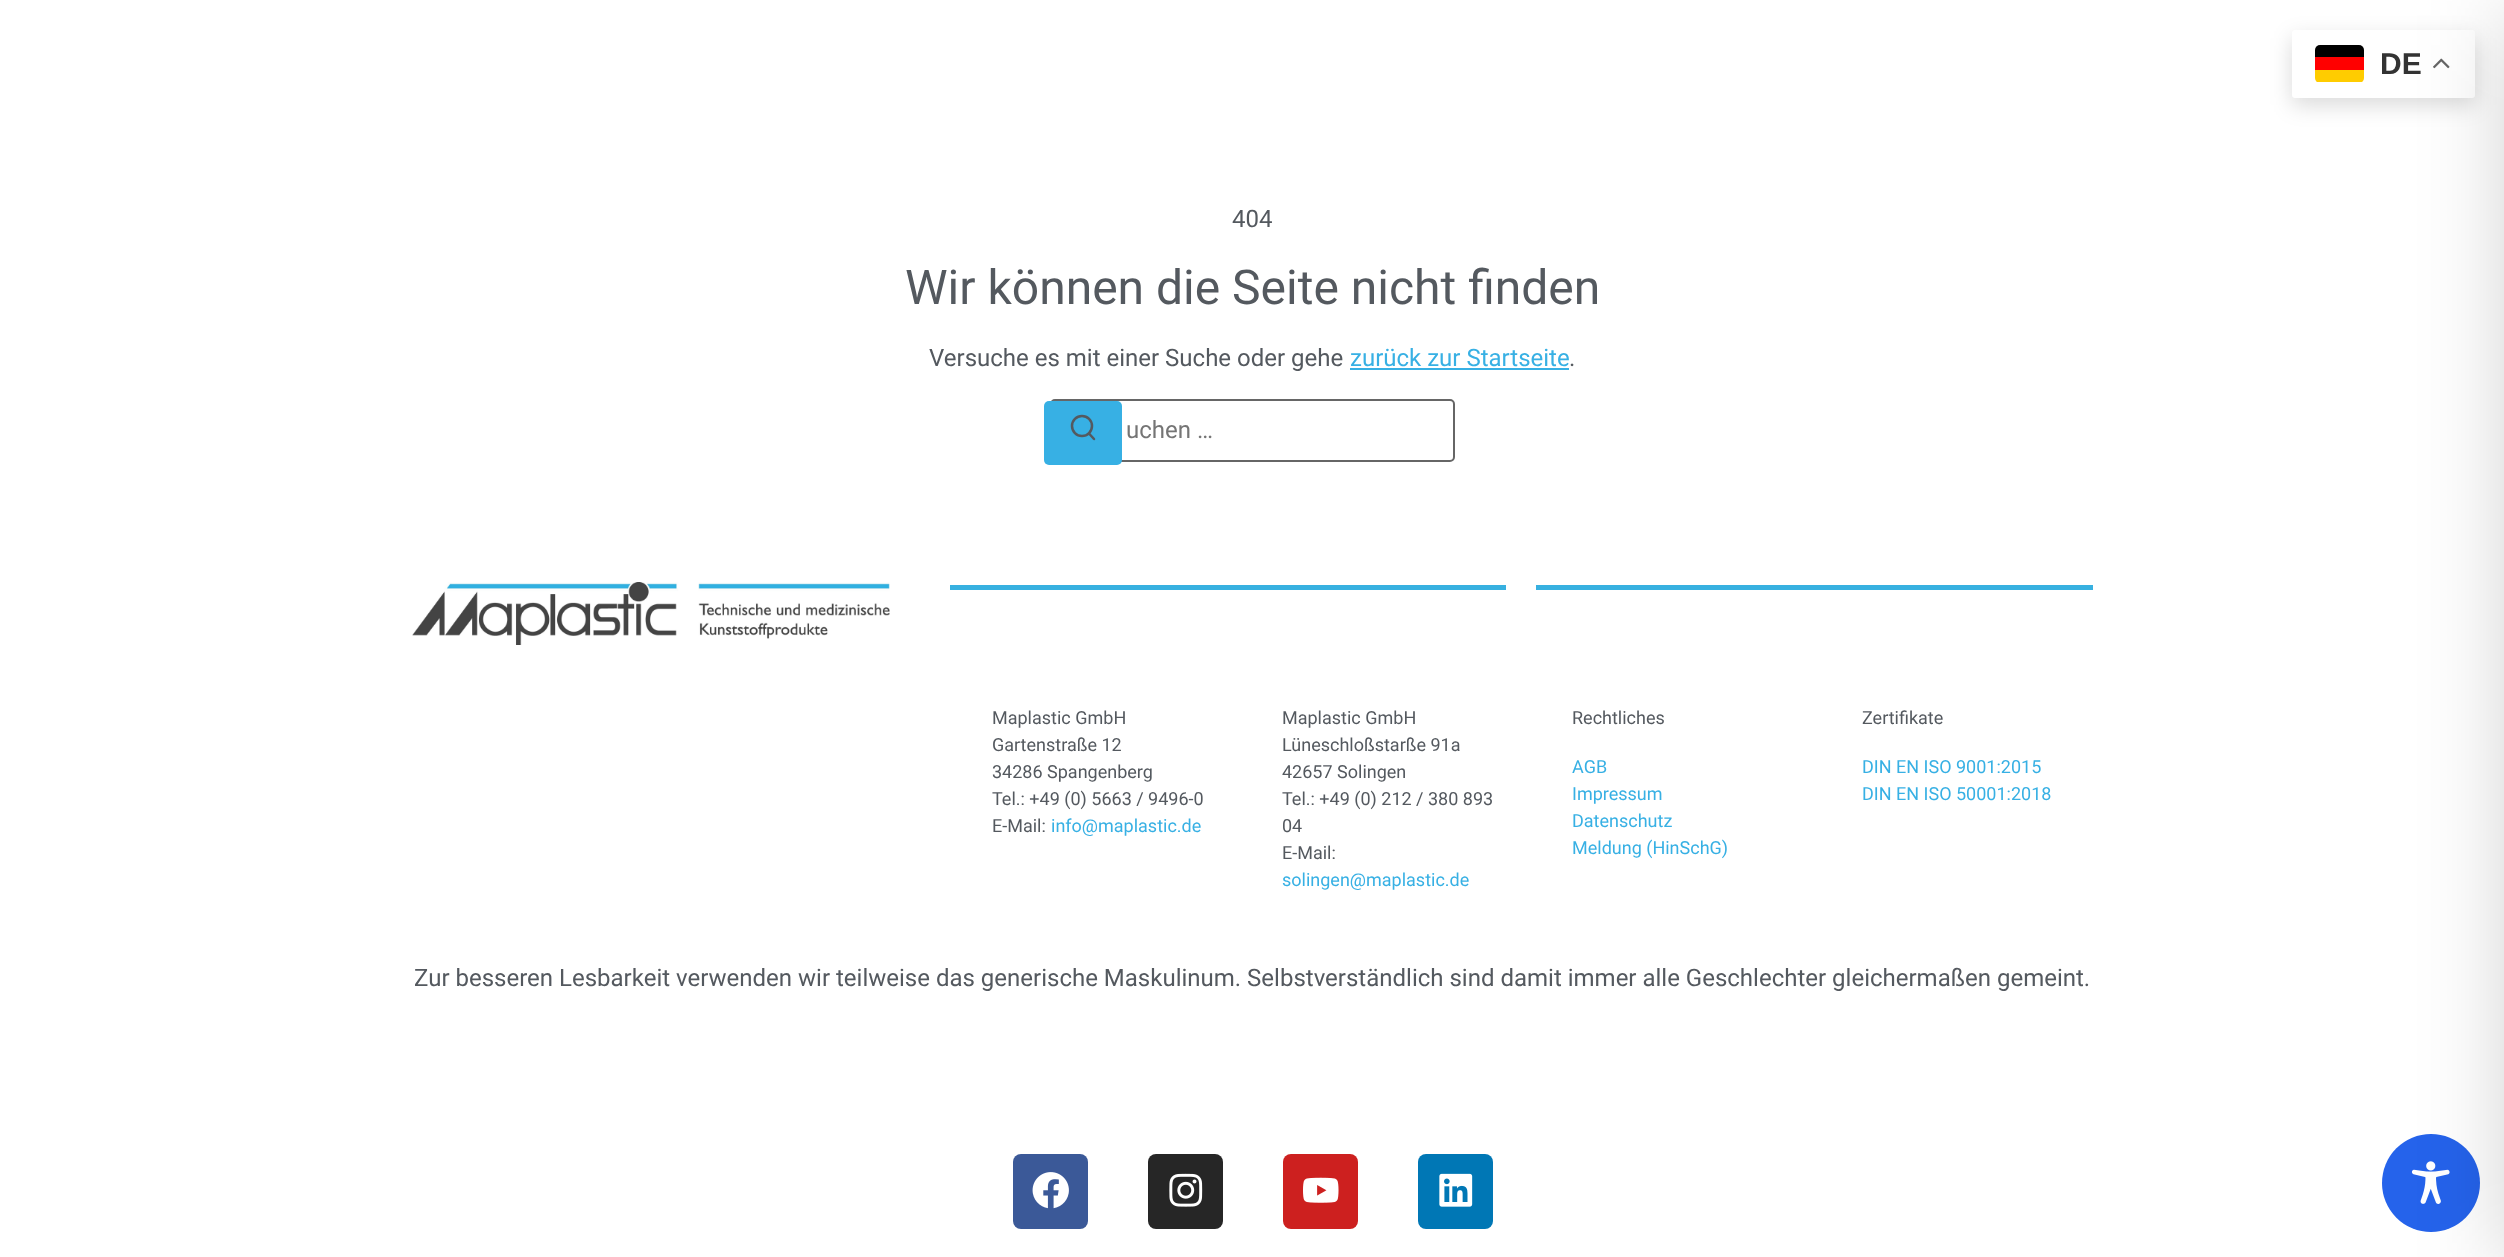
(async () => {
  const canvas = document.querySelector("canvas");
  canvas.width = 2504;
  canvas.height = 1257;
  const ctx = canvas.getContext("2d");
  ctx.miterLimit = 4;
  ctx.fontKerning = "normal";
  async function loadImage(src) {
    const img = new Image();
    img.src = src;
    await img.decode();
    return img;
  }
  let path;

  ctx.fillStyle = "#ffffff";
  ctx.fillRect(0, 0, 2504, 1257);
  ctx.fillStyle = "rgba(0, 0, 0, 0.15)";
  ctx.filter = "blur(11px)";
  ctx.beginPath();
  ctx.roundRect(2292, 38, 183, 67, 3);
  ctx.fill();
  ctx.filter = "none";
  ctx.fillStyle = "#ffffff";
  ctx.beginPath();
  ctx.roundRect(2292, 30, 183, 68, 3);
  ctx.fill();
  ctx.drawImage(await loadImage("img/1.png"), 2433, 58, 17, 11);
  ctx.fillStyle = "#2563eb";
  ctx.beginPath();
  ctx.arc(2431, 1183, 49, 0, Math.PI * 2);
  ctx.fill();
  ctx.drawImage(await loadImage("img/7.png"), 2411, 1161, 39, 43);
  ctx.fillStyle = "rgba(0, 0, 0, 0.2)";
  ctx.filter = "blur(45px)";
  ctx.beginPath();
  ctx.rect(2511, 15, 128, 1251);
  ctx.fill();
  ctx.filter = "none";
  ctx.save();
  ctx.beginPath();
  ctx.roundRect(2315, 45, 49, 38, 5);
  ctx.clip();
  ctx.fillStyle = "#ffcc00";
  ctx.fillRect(2315, 70, 49, 12);
  ctx.restore();
  ctx.fillStyle = "#000000";
  ctx.beginPath();
  ctx.roundRect(2315, 45, 49, 12, [5, 5, 0, 0]);
  ctx.fill();
  ctx.fillStyle = "#ff0000";
  ctx.fillRect(2315, 57, 49, 13);
  ctx.fillStyle = "#37b0e4";
  ctx.fillRect(1350, 368, 219, 2);
  ctx.beginPath();
  ctx.roundRect(1051, 400, 403, 61, 4);
  ctx.strokeStyle = "#666666";
  ctx.lineWidth = 2;
  ctx.stroke();
  ctx.beginPath();
  ctx.roundRect(1044, 401, 78, 64, 5);
  ctx.fill();
  ctx.beginPath();
  ctx.arc(1082, 426, 10, 0, Math.PI * 2);
  ctx.strokeStyle = "#54595f";
  ctx.lineWidth = 2.5;
  ctx.stroke();
  path = new Path2D("M1094 439L1089 433.5");
  ctx.lineCap = "round";
  ctx.lineJoin = "round";
  ctx.stroke(path);
  ctx.drawImage(await loadImage("img/2.png"), 412, 582, 478, 63);
  ctx.fillStyle = "#37b0e0";
  ctx.fillRect(950, 585, 556, 5);
  ctx.fillRect(1536, 585, 557, 5);
  ctx.fillStyle = "#3b5998";
  ctx.beginPath();
  ctx.roundRect(1013, 1154, 75, 75, 8);
  ctx.fill();
  ctx.drawImage(await loadImage("img/3.png"), 1032, 1172, 37, 37);
  ctx.fillStyle = "#262626";
  ctx.beginPath();
  ctx.roundRect(1148, 1154, 75, 75, 8);
  ctx.fill();
  ctx.drawImage(await loadImage("img/4.png"), 1169, 1173, 34, 34);
  ctx.fillStyle = "#cd201f";
  ctx.beginPath();
  ctx.roundRect(1283, 1154, 75, 75, 8);
  ctx.fill();
  ctx.drawImage(await loadImage("img/5.png"), 1303, 1177, 36, 26);
  ctx.fillStyle = "#0077b5";
  ctx.beginPath();
  ctx.roundRect(1418, 1154, 75, 75, 8);
  ctx.fill();
  ctx.drawImage(await loadImage("img/6.png"), 1439, 1173, 34, 34);
  ctx.font = "bold 30px Liberation Sans";
  ctx.fillStyle = "#333333";
  ctx.fillText("DE", 2380, 74);
  ctx.font = "24px Roboto";
  ctx.fillStyle = "#54595f";
  ctx.fillText("404", 1232, 227);
  ctx.font = "48px Roboto";
  ctx.fillText("Wir können die Seite nicht finden", 905, 304);
  ctx.font = "24px Roboto";
  ctx.fillText("Versuche es mit einer Suche oder gehe", 929, 366);
  ctx.fillStyle = "#37b0e4";
  ctx.fillText("zurück zur Startseite", 1350, 366);
  ctx.fillStyle = "#54595f";
  ctx.fillText(".", 1569, 366);
  ctx.fillStyle = "#757575";
  ctx.fillText("uchen …", 1126, 438);
  ctx.font = "18px Roboto";
  ctx.fillStyle = "#54595f";
  for (const [text, x, y] of [
    ["Maplastic GmbH", 992, 724],
    ["Gartenstraße 12", 992, 751],
    ["34286 Spangenberg", 992, 778],
    ["Tel.: +49 (0) 5663 / 9496-0", 992, 805],
    ["E-Mail:", 992, 832],
  ]) {
    ctx.fillText(text, x, y);
  }
  ctx.fillStyle = "#37b0e4";
  ctx.fillText("info@maplastic.de", 1051, 832);
  ctx.fillStyle = "#54595f";
  for (const [text, x, y] of [
    ["Maplastic GmbH", 1282, 724],
    ["Lüneschloßstarße 91a", 1282, 751],
    ["42657 Solingen", 1282, 778],
    ["Tel.: +49 (0) 212 / 380 893", 1282, 805],
    ["04", 1282, 832],
    ["E-Mail:", 1282, 859],
  ]) {
    ctx.fillText(text, x, y);
  }
  ctx.fillStyle = "#37b0e4";
  ctx.fillText("solingen@maplastic.de", 1282, 886);
  ctx.fillStyle = "#54595f";
  ctx.fillText("Rechtliches", 1572, 724);
  ctx.fillStyle = "#37b0e4";
  for (const [text, x, y] of [
    ["AGB", 1572, 773],
    ["Impressum", 1572, 800],
    ["Datenschutz", 1572, 827],
    ["Meldung (HinSchG)", 1572, 854],
  ]) {
    ctx.fillText(text, x, y);
  }
  ctx.fillStyle = "#54595f";
  ctx.fillText("Zertifikate", 1862, 724);
  ctx.fillStyle = "#37b0e4";
  ctx.fillText("DIN EN ISO 9001:2015", 1862, 773);
  ctx.fillText("DIN EN ISO 50001:2018", 1862, 800);
  ctx.font = "24px Roboto";
  ctx.fillStyle = "#54595f";
  ctx.fillText("Zur besseren Lesbarkeit verwenden wir teilweise das generische Maskulinum. Selbstverständlich sind damit immer alle Geschlechter gleichermaßen gemeint.", 414, 986);
})();
